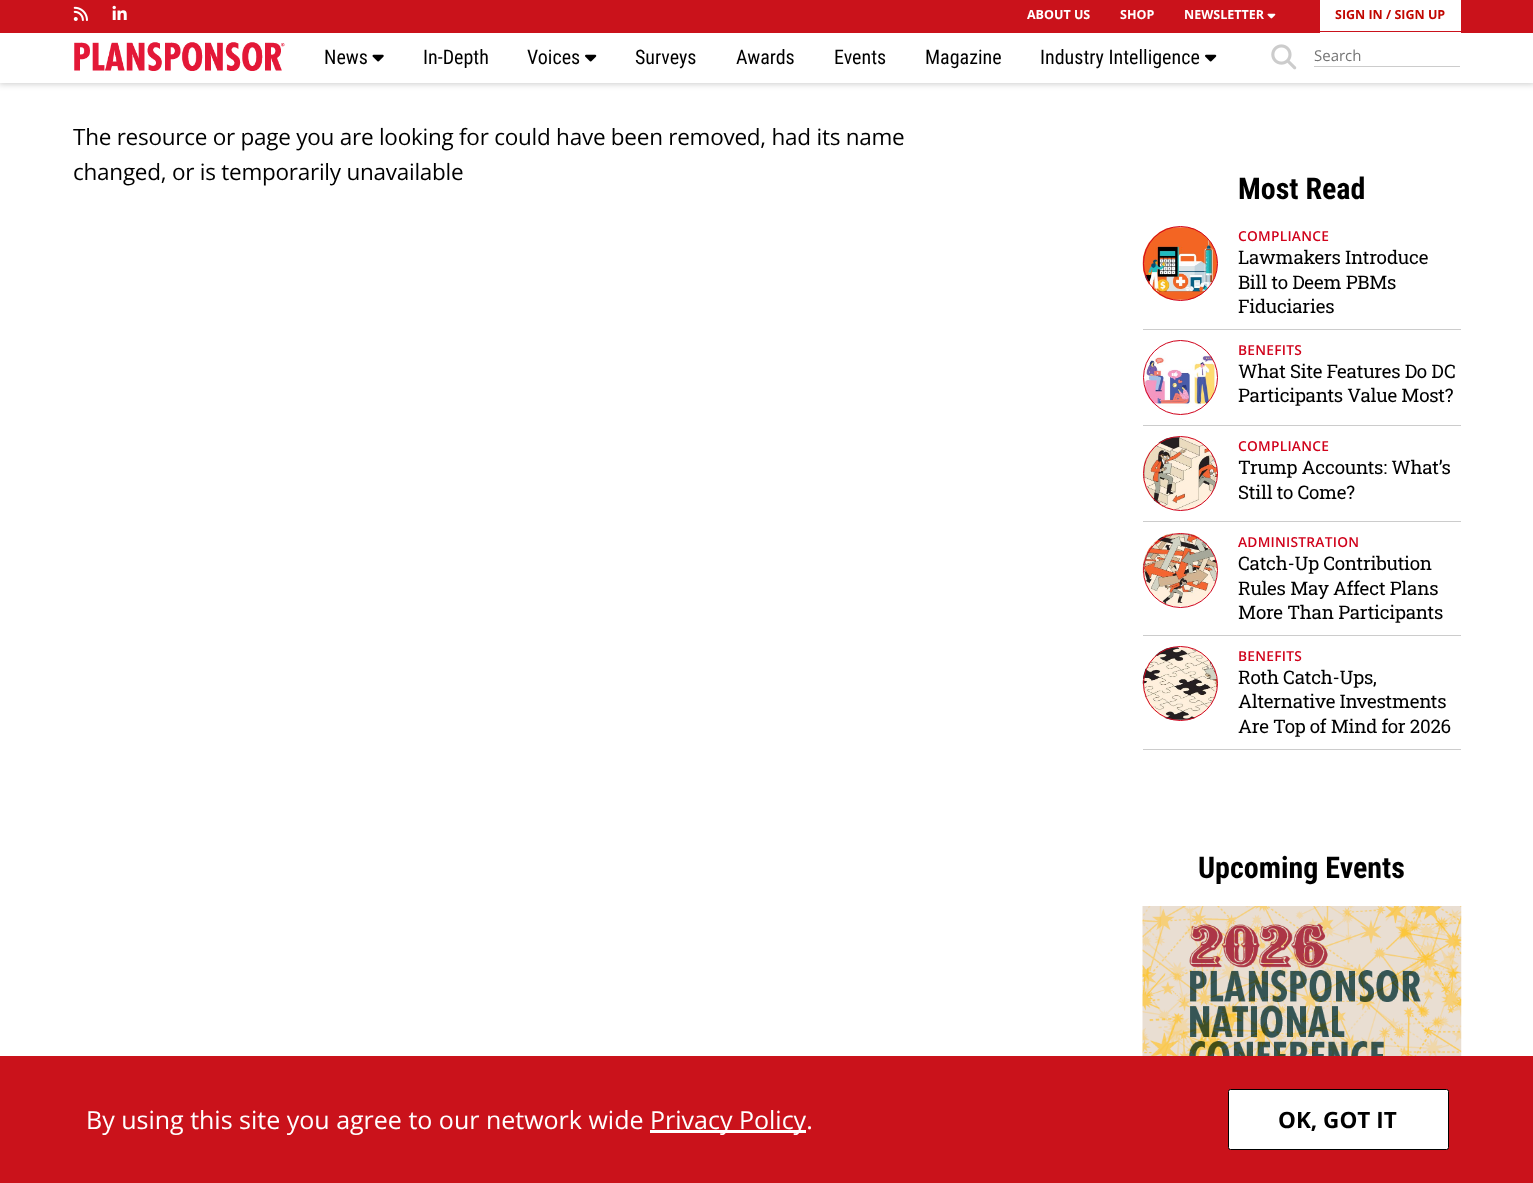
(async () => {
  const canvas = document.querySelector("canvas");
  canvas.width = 1533;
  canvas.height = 1183;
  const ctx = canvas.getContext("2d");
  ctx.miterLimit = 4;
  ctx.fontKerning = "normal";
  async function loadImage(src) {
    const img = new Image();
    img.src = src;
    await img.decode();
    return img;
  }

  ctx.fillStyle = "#ffffff";
  ctx.fillRect(0, 0, 1533, 1183);
  ctx.fillStyle = "rgba(0, 0, 0, 0.2)";
  ctx.filter = "blur(3px)";
  ctx.beginPath();
  ctx.rect(-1, -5, 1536, 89);
  ctx.fill();
  ctx.filter = "none";
  ctx.fillStyle = "#ca121b";
  ctx.fillRect(0, 0, 1533, 33);
  ctx.drawImage(await loadImage("img/1.png"), 73, 6, 15, 15);
  ctx.drawImage(await loadImage("img/2.png"), 112, 5, 15, 15);
  ctx.drawImage(await loadImage("img/3.png"), 1267, 13, 9, 6);
  for (const [x, y, w, h, color] of [
    [1320, 0, 141, 33, "#ffffff"],
    [1320, 31, 141, 1, "#ca121b"],
    [0, 33, 1533, 50, "#ffffff"],
  ]) {
    ctx.fillStyle = color;
    ctx.fillRect(x, y, w, h);
  }
  ctx.drawImage(await loadImage("img/4.png"), 74, 42, 211, 29);
  ctx.drawImage(await loadImage("img/5.png"), 372, 54, 12, 8);
  ctx.drawImage(await loadImage("img/6.png"), 585, 54, 12, 8);
  ctx.drawImage(await loadImage("img/6.png"), 1205, 54, 12, 8);
  ctx.drawImage(await loadImage("img/7.png"), 1271, 44, 26, 26);
  ctx.fillStyle = "#cccccc";
  ctx.fillRect(1314, 66, 146, 1);
  ctx.fillRect(1143, 329, 318, 1);
  ctx.drawImage(await loadImage("img/8.png"), 1142, 227, 76, 73);
  ctx.beginPath();
  ctx.arc(1180.5, 263.5, 37, 0, Math.PI * 2);
  ctx.strokeStyle = "#d0021b";
  ctx.stroke();
  ctx.fillRect(1143, 425, 318, 1);
  ctx.drawImage(await loadImage("img/9.png"), 1142, 355, 74, 52);
  ctx.beginPath();
  ctx.arc(1180.5, 377.5, 37, 0, Math.PI * 2);
  ctx.stroke();
  ctx.fillRect(1143, 521, 318, 1);
  ctx.drawImage(await loadImage("img/10.png"), 1142, 437, 76, 73);
  ctx.beginPath();
  ctx.arc(1180.5, 473.5, 37, 0, Math.PI * 2);
  ctx.stroke();
  ctx.fillRect(1143, 635, 318, 1);
  ctx.drawImage(await loadImage("img/11.png"), 1142, 533, 76, 73);
  ctx.beginPath();
  ctx.arc(1180.5, 570.5, 37, 0, Math.PI * 2);
  ctx.stroke();
  ctx.fillRect(1143, 749, 318, 1);
  ctx.drawImage(await loadImage("img/12.png"), 1142, 647, 76, 73);
  ctx.beginPath();
  ctx.arc(1180.5, 683.5, 37, 0, Math.PI * 2);
  ctx.stroke();
  ctx.drawImage(await loadImage("img/13.png"), 1142, 906, 320, 150);
  ctx.fillStyle = "#ca121b";
  ctx.fillRect(0, 1056, 1533, 127);
  ctx.fillStyle = "#ffffff";
  ctx.fillRect(650, 1130, 156, 3);
  ctx.beginPath();
  ctx.roundRect(1228.5, 1089.5, 220, 60, 2);
  ctx.fill();
  ctx.strokeStyle = "#000000";
  ctx.stroke();
  ctx.font = "bold 12.5px Open Sans";
  for (const [text, x, y] of [
    ["ABOUT US", 1027, 19],
    ["SHOP", 1120, 19],
    ["NEWSLETTER", 1184, 19],
  ]) {
    ctx.fillText(text, x, y);
  }
  ctx.fillStyle = "#c10700";
  ctx.fillText("SIGN IN / SIGN UP", 1335, 19);
  ctx.font = "20px Roboto Condensed";
  ctx.fillStyle = "#000000";
  for (const [text, x, y] of [
    ["News", 324, 64],
    ["In-Depth", 423, 64],
    ["Voices", 527, 64],
    ["Surveys", 635, 64],
    ["Awards", 736, 64],
    ["Events", 834, 64],
    ["Magazine", 925, 64],
    ["Industry Intelligence", 1040, 64],
  ]) {
    ctx.fillText(text, x, y);
  }
  ctx.font = "15px Open Sans";
  ctx.fillStyle = "#757575";
  ctx.fillText("Search", 1314, 61);
  ctx.letterSpacing = "-0.25px";
  ctx.font = "22.5px Open Sans";
  ctx.fillStyle = "#000000";
  ctx.fillText("The resource or page you are looking for could have been removed, had its name", 73, 145);
  ctx.fillText("changed, or is temporarily unavailable", 73, 180);
  ctx.letterSpacing = "0px";
  ctx.font = "bold 30px Roboto Condensed";
  ctx.fillText("Most Read", 1238, 199);
  ctx.letterSpacing = "0.25px";
  ctx.font = "600 13.75px Open Sans";
  ctx.fillStyle = "#d0021b";
  ctx.fillText("COMPLIANCE", 1238, 241);
  ctx.letterSpacing = "-0.25px";
  ctx.font = "18.75px Roboto Slab";
  ctx.fillStyle = "#000000";
  for (const [text, x, y] of [
    ["Lawmakers Introduce", 1238, 264],
    ["Bill to Deem PBMs", 1238, 289],
    ["Fiduciaries", 1238, 313],
  ]) {
    ctx.fillText(text, x, y);
  }
  ctx.letterSpacing = "0.25px";
  ctx.font = "600 13.75px Open Sans";
  ctx.fillStyle = "#d0021b";
  ctx.fillText("BENEFITS", 1238, 355);
  ctx.letterSpacing = "-0.25px";
  ctx.font = "18.75px Roboto Slab";
  ctx.fillStyle = "#000000";
  ctx.fillText("What Site Features Do DC", 1238, 378);
  ctx.fillText("Participants Value Most?", 1238, 402);
  ctx.letterSpacing = "0.25px";
  ctx.font = "600 13.75px Open Sans";
  ctx.fillStyle = "#d0021b";
  ctx.fillText("COMPLIANCE", 1238, 451);
  ctx.letterSpacing = "-0.25px";
  ctx.font = "18.75px Roboto Slab";
  ctx.fillStyle = "#000000";
  ctx.fillText("Trump Accounts: What’s", 1238, 474);
  ctx.fillText("Still to Come?", 1238, 499);
  ctx.letterSpacing = "0.25px";
  ctx.font = "600 13.75px Open Sans";
  ctx.fillStyle = "#d0021b";
  ctx.fillText("ADMINISTRATION", 1238, 547);
  ctx.letterSpacing = "-0.25px";
  ctx.font = "18.75px Roboto Slab";
  ctx.fillStyle = "#000000";
  for (const [text, x, y] of [
    ["Catch-Up Contribution", 1238, 570],
    ["Rules May Affect Plans", 1238, 595],
    ["More Than Participants", 1238, 619],
  ]) {
    ctx.fillText(text, x, y);
  }
  ctx.letterSpacing = "0.25px";
  ctx.font = "600 13.75px Open Sans";
  ctx.fillStyle = "#d0021b";
  ctx.fillText("BENEFITS", 1238, 661);
  ctx.letterSpacing = "-0.25px";
  ctx.font = "18.75px Roboto Slab";
  ctx.fillStyle = "#000000";
  for (const [text, x, y] of [
    ["Roth Catch-Ups,", 1238, 684],
    ["Alternative Investments", 1238, 708],
    ["Are Top of Mind for 2026", 1238, 733],
  ]) {
    ctx.fillText(text, x, y);
  }
  ctx.letterSpacing = "0px";
  ctx.font = "bold 30px Roboto Condensed";
  ctx.fillText("Upcoming Events", 1198, 878);
  ctx.font = "25px Open Sans";
  ctx.fillStyle = "#ffffff";
  ctx.fillText("By using this site you agree to our network wide", 86, 1129);
  ctx.fillText("Privacy Policy.", 650, 1129);
  ctx.font = "bold 22.5px Open Sans";
  ctx.fillStyle = "#000000";
  ctx.fillText("OK, GOT IT", 1278, 1128);
})();
